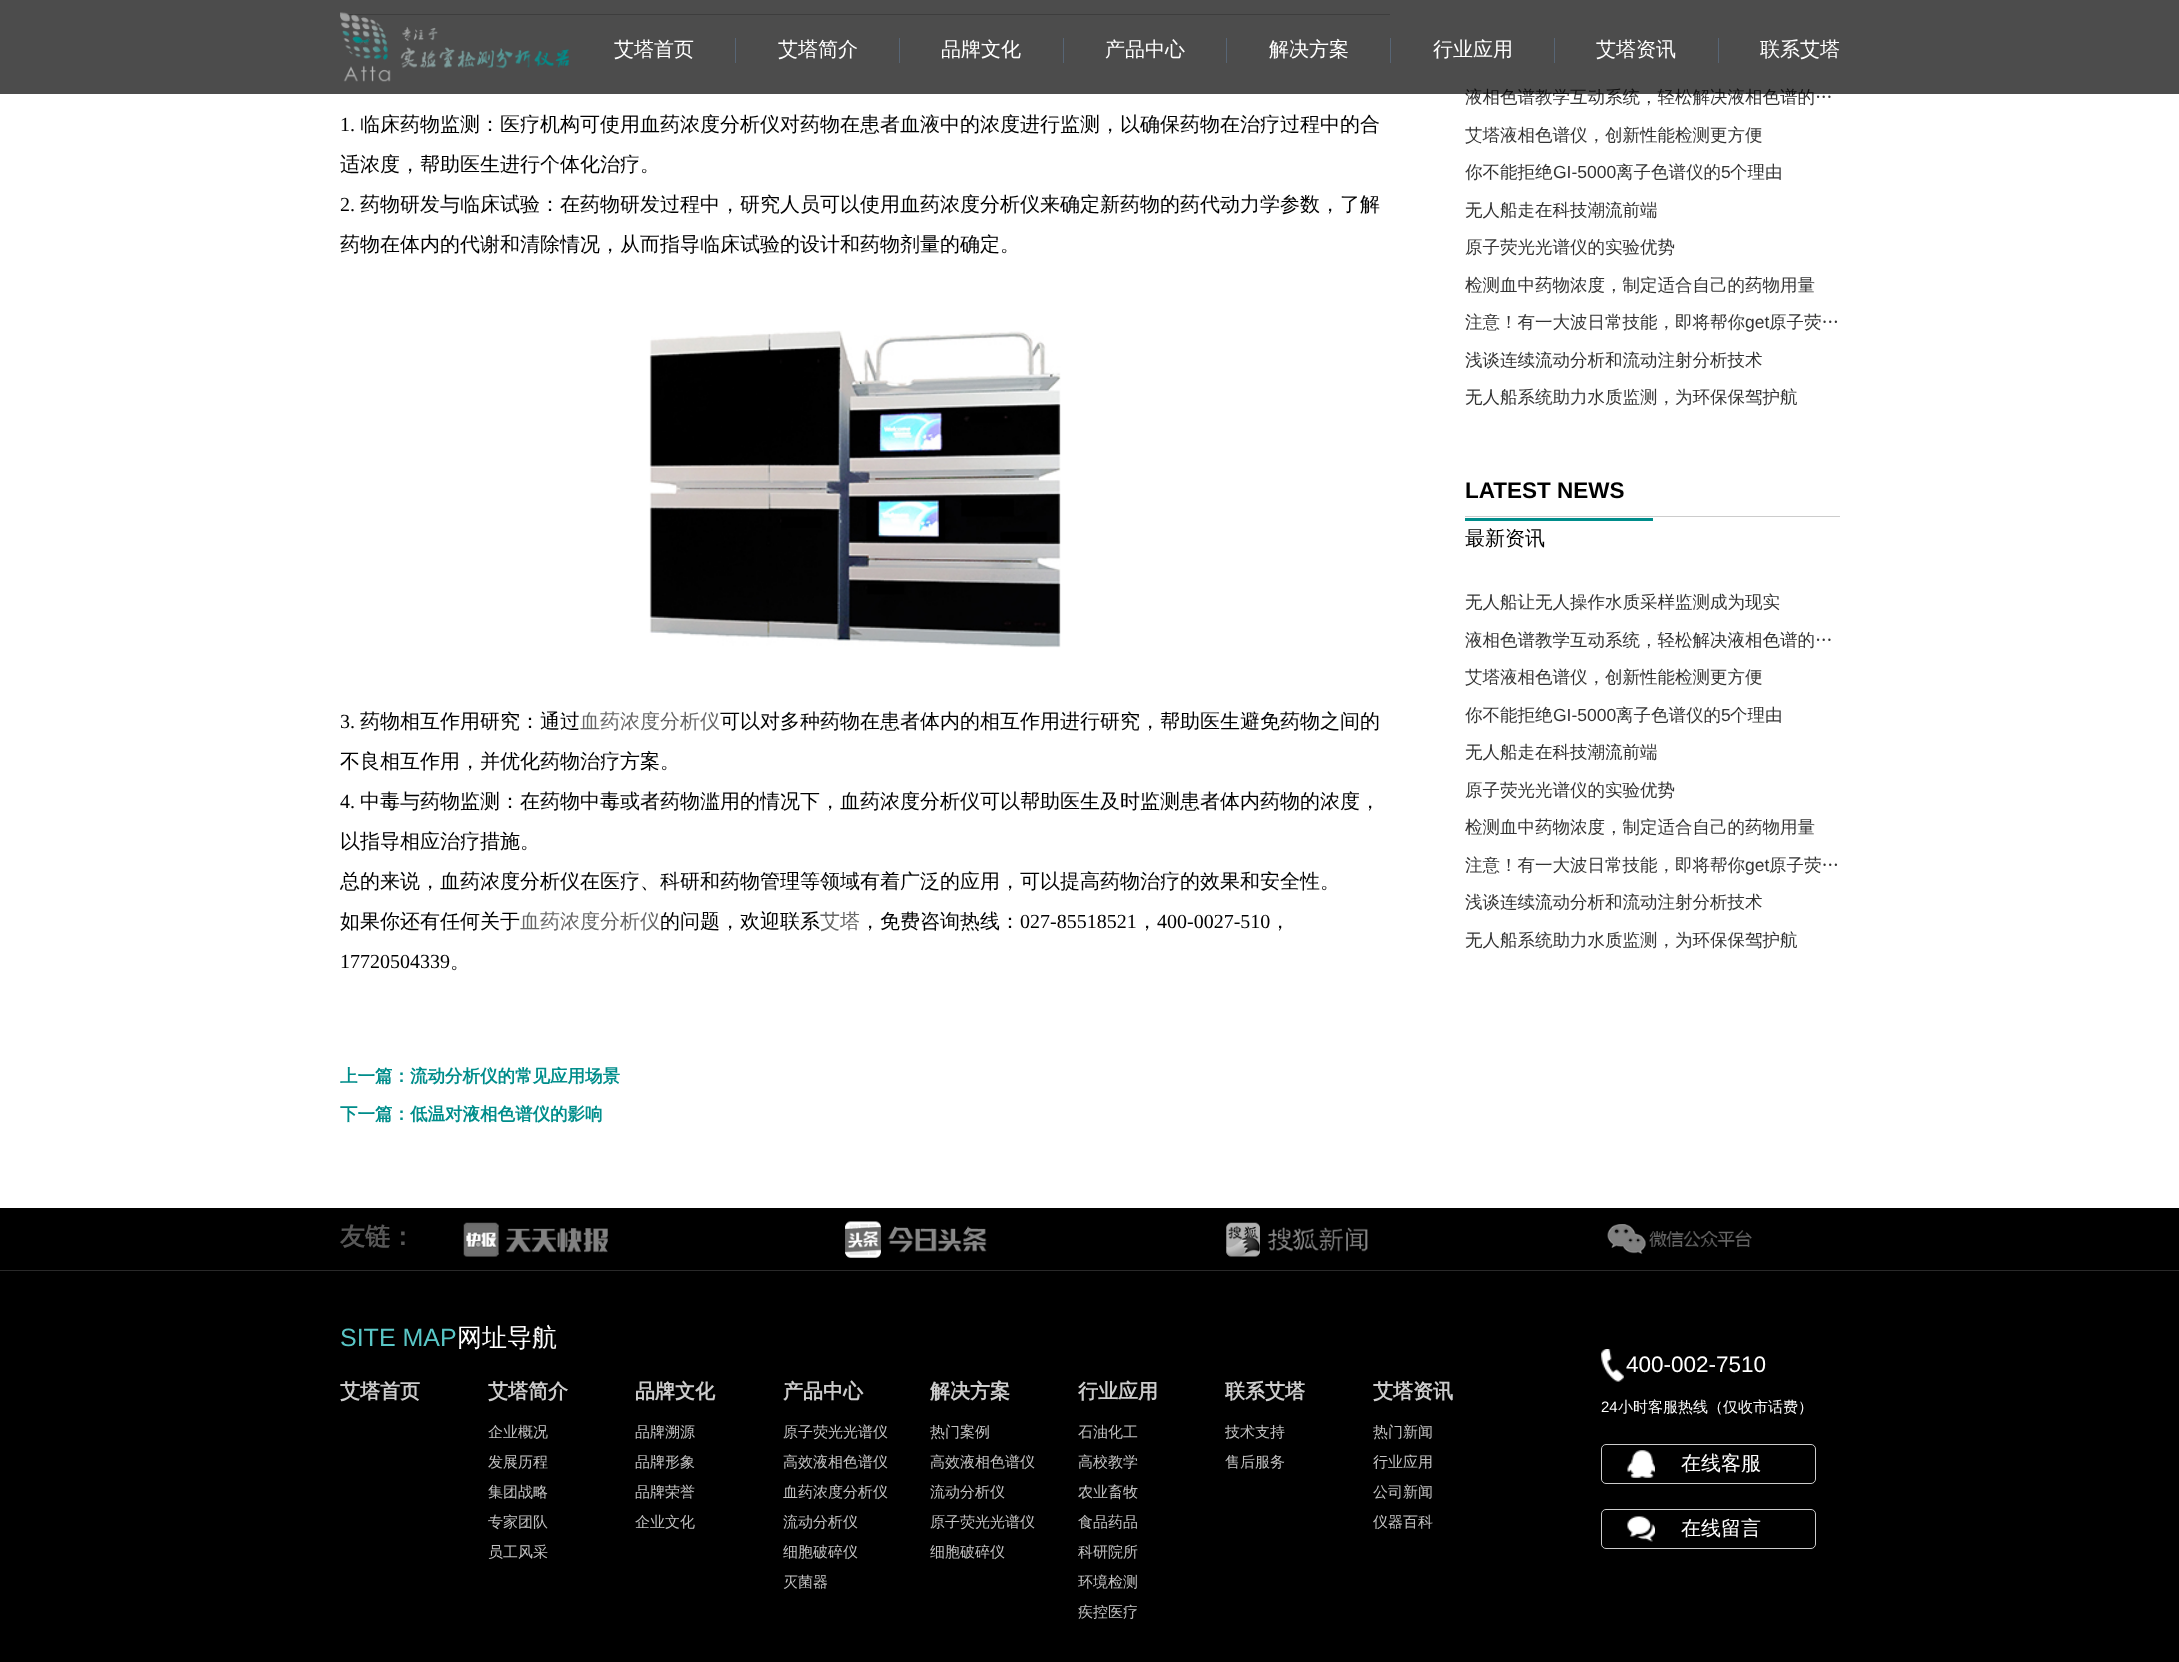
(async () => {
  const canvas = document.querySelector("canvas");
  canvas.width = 2179;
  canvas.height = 1662;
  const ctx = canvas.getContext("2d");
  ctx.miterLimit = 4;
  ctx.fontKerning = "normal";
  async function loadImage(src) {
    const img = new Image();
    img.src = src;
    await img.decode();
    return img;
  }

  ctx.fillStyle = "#ffffff";
  ctx.fillRect(0, 0, 2179, 1662);
  ctx.fillStyle = "#cccccc";
  ctx.fillRect(340, 14, 1050, 1);
  ctx.drawImage(await loadImage("img/2.png"), 649, 330, 412, 318);
  for (const [x, y, w, h, color] of [
    [1465, 516, 375, 1, "#cccccc"],
    [1465, 518, 188, 3, "#008d8b"],
    [0, 1208, 2179, 454, "#000000"],
    [0, 1270, 2179, 1, "#292929"],
  ]) {
    ctx.fillStyle = color;
    ctx.fillRect(x, y, w, h);
  }
  ctx.drawImage(await loadImage("img/3.png"), 463, 1222, 145, 35);
  ctx.drawImage(await loadImage("img/4.png"), 845, 1221, 142, 37);
  ctx.drawImage(await loadImage("img/5.png"), 1226, 1222, 142, 35);
  ctx.drawImage(await loadImage("img/6.png"), 1607, 1224, 145, 30);
  ctx.drawImage(await loadImage("img/7.png"), 1601, 1349, 23, 33);
  ctx.drawImage(await loadImage("img/8.png"), 1627, 1450, 28, 28);
  ctx.beginPath();
  ctx.roundRect(1601.5, 1444.5, 214, 39, 4.5);
  ctx.strokeStyle = "#cccccc";
  ctx.stroke();
  ctx.drawImage(await loadImage("img/9.png"), 1627, 1516, 28, 26);
  ctx.beginPath();
  ctx.roundRect(1601.5, 1509.5, 214, 39, 4.5);
  ctx.stroke();
  ctx.font = "20px Liberation Serif";
  ctx.fillStyle = "#000000";
  ctx.fillText("1.", 340, 131);
  ctx.font = "500 20px WenQuanYi Zen Hei";
  ctx.fillText("临床药物监测：医疗机构可使用血药浓度分析仪对药物在患者血液中的浓度进行监测，以确保药物在治疗过程中的合", 360, 131);
  ctx.fillText("适浓度，帮助医生进行个体化治疗。", 340, 171);
  ctx.font = "20px Liberation Serif";
  ctx.fillText("2.", 340, 211);
  ctx.font = "500 20px WenQuanYi Zen Hei";
  ctx.fillText("药物研发与临床试验：在药物研发过程中，研究人员可以使用血药浓度分析仪来确定新药物的药代动力学参数，了解", 360, 211);
  ctx.fillText("药物在体内的代谢和清除情况，从而指导临床试验的设计和药物剂量的确定。", 340, 251);
  ctx.font = "20px Liberation Serif";
  ctx.fillText("3.", 340, 728);
  ctx.font = "500 20px WenQuanYi Zen Hei";
  ctx.fillText("药物相互作用研究：通过", 360, 728);
  ctx.fillStyle = "#666666";
  ctx.fillText("血药浓度分析仪", 580, 728);
  ctx.fillStyle = "#000000";
  ctx.fillText("可以对多种药物在患者体内的相互作用进行研究，帮助医生避免药物之间的", 720, 728);
  ctx.fillText("不良相互作用，并优化药物治疗方案。", 340, 768);
  ctx.font = "20px Liberation Serif";
  ctx.fillText("4.", 340, 808);
  ctx.font = "500 20px WenQuanYi Zen Hei";
  for (const [text, x, y] of [
    ["中毒与药物监测：在药物中毒或者药物滥用的情况下，血药浓度分析仪可以帮助医生及时监测患者体内药物的浓度，", 360, 808],
    ["以指导相应治疗措施。", 340, 848],
    ["总的来说，血药浓度分析仪在医疗、科研和药物管理等领域有着广泛的应用，可以提高药物治疗的效果和安全性。", 340, 888],
    ["如果你还有任何关于", 340, 928],
  ]) {
    ctx.fillText(text, x, y);
  }
  ctx.fillStyle = "#666666";
  ctx.fillText("血药浓度分析仪", 520, 928);
  ctx.fillStyle = "#000000";
  ctx.fillText("的问题，欢迎联系", 660, 928);
  ctx.fillStyle = "#666666";
  ctx.fillText("艾塔", 820, 928);
  ctx.fillStyle = "#000000";
  ctx.fillText("，免费咨询热线：", 860, 928);
  ctx.font = "20px Liberation Serif";
  ctx.fillText("027-85518521", 1020, 928);
  ctx.font = "500 20px WenQuanYi Zen Hei";
  ctx.fillText("，", 1137, 928);
  ctx.font = "20px Liberation Serif";
  ctx.fillText("400-0027-510", 1157, 928);
  ctx.font = "500 20px WenQuanYi Zen Hei";
  ctx.fillText("，", 1270, 928);
  ctx.font = "20px Liberation Serif";
  ctx.fillText("17720504339", 340, 968);
  ctx.font = "500 20px WenQuanYi Zen Hei";
  ctx.fillText("。", 450, 968);
  ctx.font = "bold 17.5px WenQuanYi Zen Hei";
  ctx.fillStyle = "#008d8b";
  ctx.fillText("上一篇：流动分析仪的常见应用场景", 340, 1082);
  ctx.fillText("下一篇：低温对液相色谱仪的影响", 340, 1120);
  ctx.font = "500 17.5px WenQuanYi Zen Hei";
  ctx.fillStyle = "#333333";
  ctx.fillText("液相色谱教学互动系统，轻松解决液相色谱的…", 1465, 103);
  ctx.fillStyle = "rgba(0, 0, 0, 0.7)";
  ctx.fillRect(0, 0, 2179, 94);
  ctx.font = "500 20px WenQuanYi Zen Hei";
  ctx.fillStyle = "#ffffff";
  ctx.fillText("联系艾塔", 1760, 56);
  ctx.fillText("艾塔资讯", 1596, 56);
  ctx.fillStyle = "#576575";
  ctx.fillRect(1718, 38, 1, 25);
  ctx.fillStyle = "#ffffff";
  ctx.fillText("行业应用", 1433, 56);
  ctx.fillStyle = "#576575";
  ctx.fillRect(1554, 38, 1, 25);
  ctx.fillStyle = "#ffffff";
  ctx.fillText("解决方案", 1269, 56);
  ctx.fillStyle = "#576575";
  ctx.fillRect(1390, 38, 1, 25);
  ctx.fillStyle = "#ffffff";
  ctx.fillText("产品中心", 1105, 56);
  ctx.fillStyle = "#576575";
  ctx.fillRect(1226, 38, 1, 25);
  ctx.fillStyle = "#ffffff";
  ctx.fillText("品牌文化", 941, 56);
  ctx.fillStyle = "#576575";
  ctx.fillRect(1063, 38, 1, 25);
  ctx.fillStyle = "#ffffff";
  ctx.fillText("艾塔简介", 778, 56);
  ctx.fillStyle = "#576575";
  ctx.fillRect(899, 38, 1, 25);
  ctx.fillStyle = "#ffffff";
  ctx.fillText("艾塔首页", 614, 56);
  ctx.fillStyle = "#576575";
  ctx.fillRect(735, 38, 1, 25);
  ctx.drawImage(await loadImage("img/1.png"), 340, 12, 229, 70);
  ctx.font = "500 17.5px WenQuanYi Zen Hei";
  ctx.fillStyle = "#333333";
  ctx.fillText("艾塔液相色谱仪，创新性能检测更方便", 1465, 141);
  ctx.fillText("你不能拒绝", 1465, 178);
  ctx.font = "17.5px Liberation Sans";
  ctx.fillText("GI-5000", 1553, 178);
  ctx.font = "500 17.5px WenQuanYi Zen Hei";
  ctx.fillText("离子色谱仪的", 1616, 178);
  ctx.font = "17.5px Liberation Sans";
  ctx.fillText("5", 1721, 178);
  ctx.font = "500 17.5px WenQuanYi Zen Hei";
  for (const [text, x, y] of [
    ["个理由", 1730, 178],
    ["无人船走在科技潮流前端", 1465, 216],
    ["原子荧光光谱仪的实验优势", 1465, 253],
    ["检测血中药物浓度，制定适合自己的药物用量", 1465, 291],
    ["注意！有一大波日常技能，即将帮你", 1465, 328],
  ]) {
    ctx.fillText(text, x, y);
  }
  ctx.font = "17.5px Liberation Sans";
  ctx.fillText("get", 1745, 328);
  ctx.font = "500 17.5px WenQuanYi Zen Hei";
  for (const [text, x, y] of [
    ["原子荧…", 1769, 328],
    ["浅谈连续流动分析和流动注射分析技术", 1465, 366],
    ["无人船系统助力水质监测，为环保保驾护航", 1465, 403],
  ]) {
    ctx.fillText(text, x, y);
  }
  ctx.font = "bold 22.5px Liberation Sans";
  ctx.fillStyle = "#000000";
  ctx.fillText("LATEST NEWS", 1465, 498);
  ctx.font = "500 20px WenQuanYi Zen Hei";
  ctx.fillText("最新资讯", 1465, 545);
  ctx.font = "500 17.5px WenQuanYi Zen Hei";
  ctx.fillStyle = "#333333";
  for (const [text, x, y] of [
    ["无人船让无人操作水质采样监测成为现实", 1465, 608],
    ["液相色谱教学互动系统，轻松解决液相色谱的…", 1465, 646],
    ["艾塔液相色谱仪，创新性能检测更方便", 1465, 683],
    ["你不能拒绝", 1465, 721],
  ]) {
    ctx.fillText(text, x, y);
  }
  ctx.font = "17.5px Liberation Sans";
  ctx.fillText("GI-5000", 1553, 721);
  ctx.font = "500 17.5px WenQuanYi Zen Hei";
  ctx.fillText("离子色谱仪的", 1616, 721);
  ctx.font = "17.5px Liberation Sans";
  ctx.fillText("5", 1721, 721);
  ctx.font = "500 17.5px WenQuanYi Zen Hei";
  for (const [text, x, y] of [
    ["个理由", 1730, 721],
    ["无人船走在科技潮流前端", 1465, 758],
    ["原子荧光光谱仪的实验优势", 1465, 796],
    ["检测血中药物浓度，制定适合自己的药物用量", 1465, 833],
    ["注意！有一大波日常技能，即将帮你", 1465, 871],
  ]) {
    ctx.fillText(text, x, y);
  }
  ctx.font = "17.5px Liberation Sans";
  ctx.fillText("get", 1745, 871);
  ctx.font = "500 17.5px WenQuanYi Zen Hei";
  for (const [text, x, y] of [
    ["原子荧…", 1769, 871],
    ["浅谈连续流动分析和流动注射分析技术", 1465, 908],
    ["无人船系统助力水质监测，为环保保驾护航", 1465, 946],
  ]) {
    ctx.fillText(text, x, y);
  }
  ctx.font = "bold 25px WenQuanYi Zen Hei";
  ctx.fillStyle = "#575757";
  ctx.fillText("友链：", 340, 1245);
  ctx.font = "25px Liberation Sans";
  ctx.fillStyle = "#59c6c6";
  ctx.fillText("SITE MAP", 340, 1346);
  ctx.font = "500 25px WenQuanYi Zen Hei";
  ctx.fillStyle = "#ffffff";
  ctx.fillText("网址导航", 457, 1346);
  ctx.font = "bold 20px WenQuanYi Zen Hei";
  ctx.fillStyle = "#cccccc";
  ctx.fillText("艾塔首页", 340, 1398);
  ctx.fillText("艾塔简介", 488, 1398);
  ctx.font = "500 15px WenQuanYi Zen Hei";
  ctx.fillStyle = "#c2c2c2";
  for (const [text, x, y] of [
    ["企业概况", 488, 1437],
    ["发展历程", 488, 1467],
    ["集团战略", 488, 1497],
    ["专家团队", 488, 1527],
    ["员工风采", 488, 1557],
  ]) {
    ctx.fillText(text, x, y);
  }
  ctx.font = "bold 20px WenQuanYi Zen Hei";
  ctx.fillStyle = "#cccccc";
  ctx.fillText("品牌文化", 635, 1398);
  ctx.font = "500 15px WenQuanYi Zen Hei";
  ctx.fillStyle = "#c2c2c2";
  for (const [text, x, y] of [
    ["品牌溯源", 635, 1437],
    ["品牌形象", 635, 1467],
    ["品牌荣誉", 635, 1497],
    ["企业文化", 635, 1527],
  ]) {
    ctx.fillText(text, x, y);
  }
  ctx.font = "bold 20px WenQuanYi Zen Hei";
  ctx.fillStyle = "#cccccc";
  ctx.fillText("产品中心", 783, 1398);
  ctx.font = "500 15px WenQuanYi Zen Hei";
  ctx.fillStyle = "#c2c2c2";
  for (const [text, x, y] of [
    ["原子荧光光谱仪", 783, 1437],
    ["高效液相色谱仪", 783, 1467],
    ["血药浓度分析仪", 783, 1497],
    ["流动分析仪", 783, 1527],
    ["细胞破碎仪", 783, 1557],
    ["灭菌器", 783, 1587],
  ]) {
    ctx.fillText(text, x, y);
  }
  ctx.font = "bold 20px WenQuanYi Zen Hei";
  ctx.fillStyle = "#cccccc";
  ctx.fillText("解决方案", 930, 1398);
  ctx.font = "500 15px WenQuanYi Zen Hei";
  ctx.fillStyle = "#c2c2c2";
  for (const [text, x, y] of [
    ["热门案例", 930, 1437],
    ["高效液相色谱仪", 930, 1467],
    ["流动分析仪", 930, 1497],
    ["原子荧光光谱仪", 930, 1527],
    ["细胞破碎仪", 930, 1557],
  ]) {
    ctx.fillText(text, x, y);
  }
  ctx.font = "bold 20px WenQuanYi Zen Hei";
  ctx.fillStyle = "#cccccc";
  ctx.fillText("行业应用", 1078, 1398);
  ctx.font = "500 15px WenQuanYi Zen Hei";
  ctx.fillStyle = "#c2c2c2";
  for (const [text, x, y] of [
    ["石油化工", 1078, 1437],
    ["高校教学", 1078, 1467],
    ["农业畜牧", 1078, 1497],
    ["食品药品", 1078, 1527],
    ["科研院所", 1078, 1557],
    ["环境检测", 1078, 1587],
    ["疾控医疗", 1078, 1617],
  ]) {
    ctx.fillText(text, x, y);
  }
  ctx.font = "bold 20px WenQuanYi Zen Hei";
  ctx.fillStyle = "#cccccc";
  ctx.fillText("联系艾塔", 1225, 1398);
  ctx.font = "500 15px WenQuanYi Zen Hei";
  ctx.fillStyle = "#c2c2c2";
  ctx.fillText("技术支持", 1225, 1437);
  ctx.fillText("售后服务", 1225, 1467);
  ctx.font = "bold 20px WenQuanYi Zen Hei";
  ctx.fillStyle = "#cccccc";
  ctx.fillText("艾塔资讯", 1373, 1398);
  ctx.font = "500 15px WenQuanYi Zen Hei";
  ctx.fillStyle = "#c2c2c2";
  for (const [text, x, y] of [
    ["热门新闻", 1373, 1437],
    ["行业应用", 1373, 1467],
    ["公司新闻", 1373, 1497],
    ["仪器百科", 1373, 1527],
  ]) {
    ctx.fillText(text, x, y);
  }
  ctx.font = "22.5px Liberation Sans";
  ctx.fillStyle = "#ffffff";
  ctx.fillText("400-002-7510", 1626, 1372);
  ctx.font = "15px Liberation Sans";
  ctx.fillText("24", 1601, 1412);
  ctx.font = "500 15px WenQuanYi Zen Hei";
  ctx.fillText("小时客服热线（仅收市话费）", 1618, 1412);
  ctx.font = "500 20px WenQuanYi Zen Hei";
  ctx.fillText("在线客服", 1681, 1470);
  ctx.fillText("在线留言", 1681, 1535);
})();
